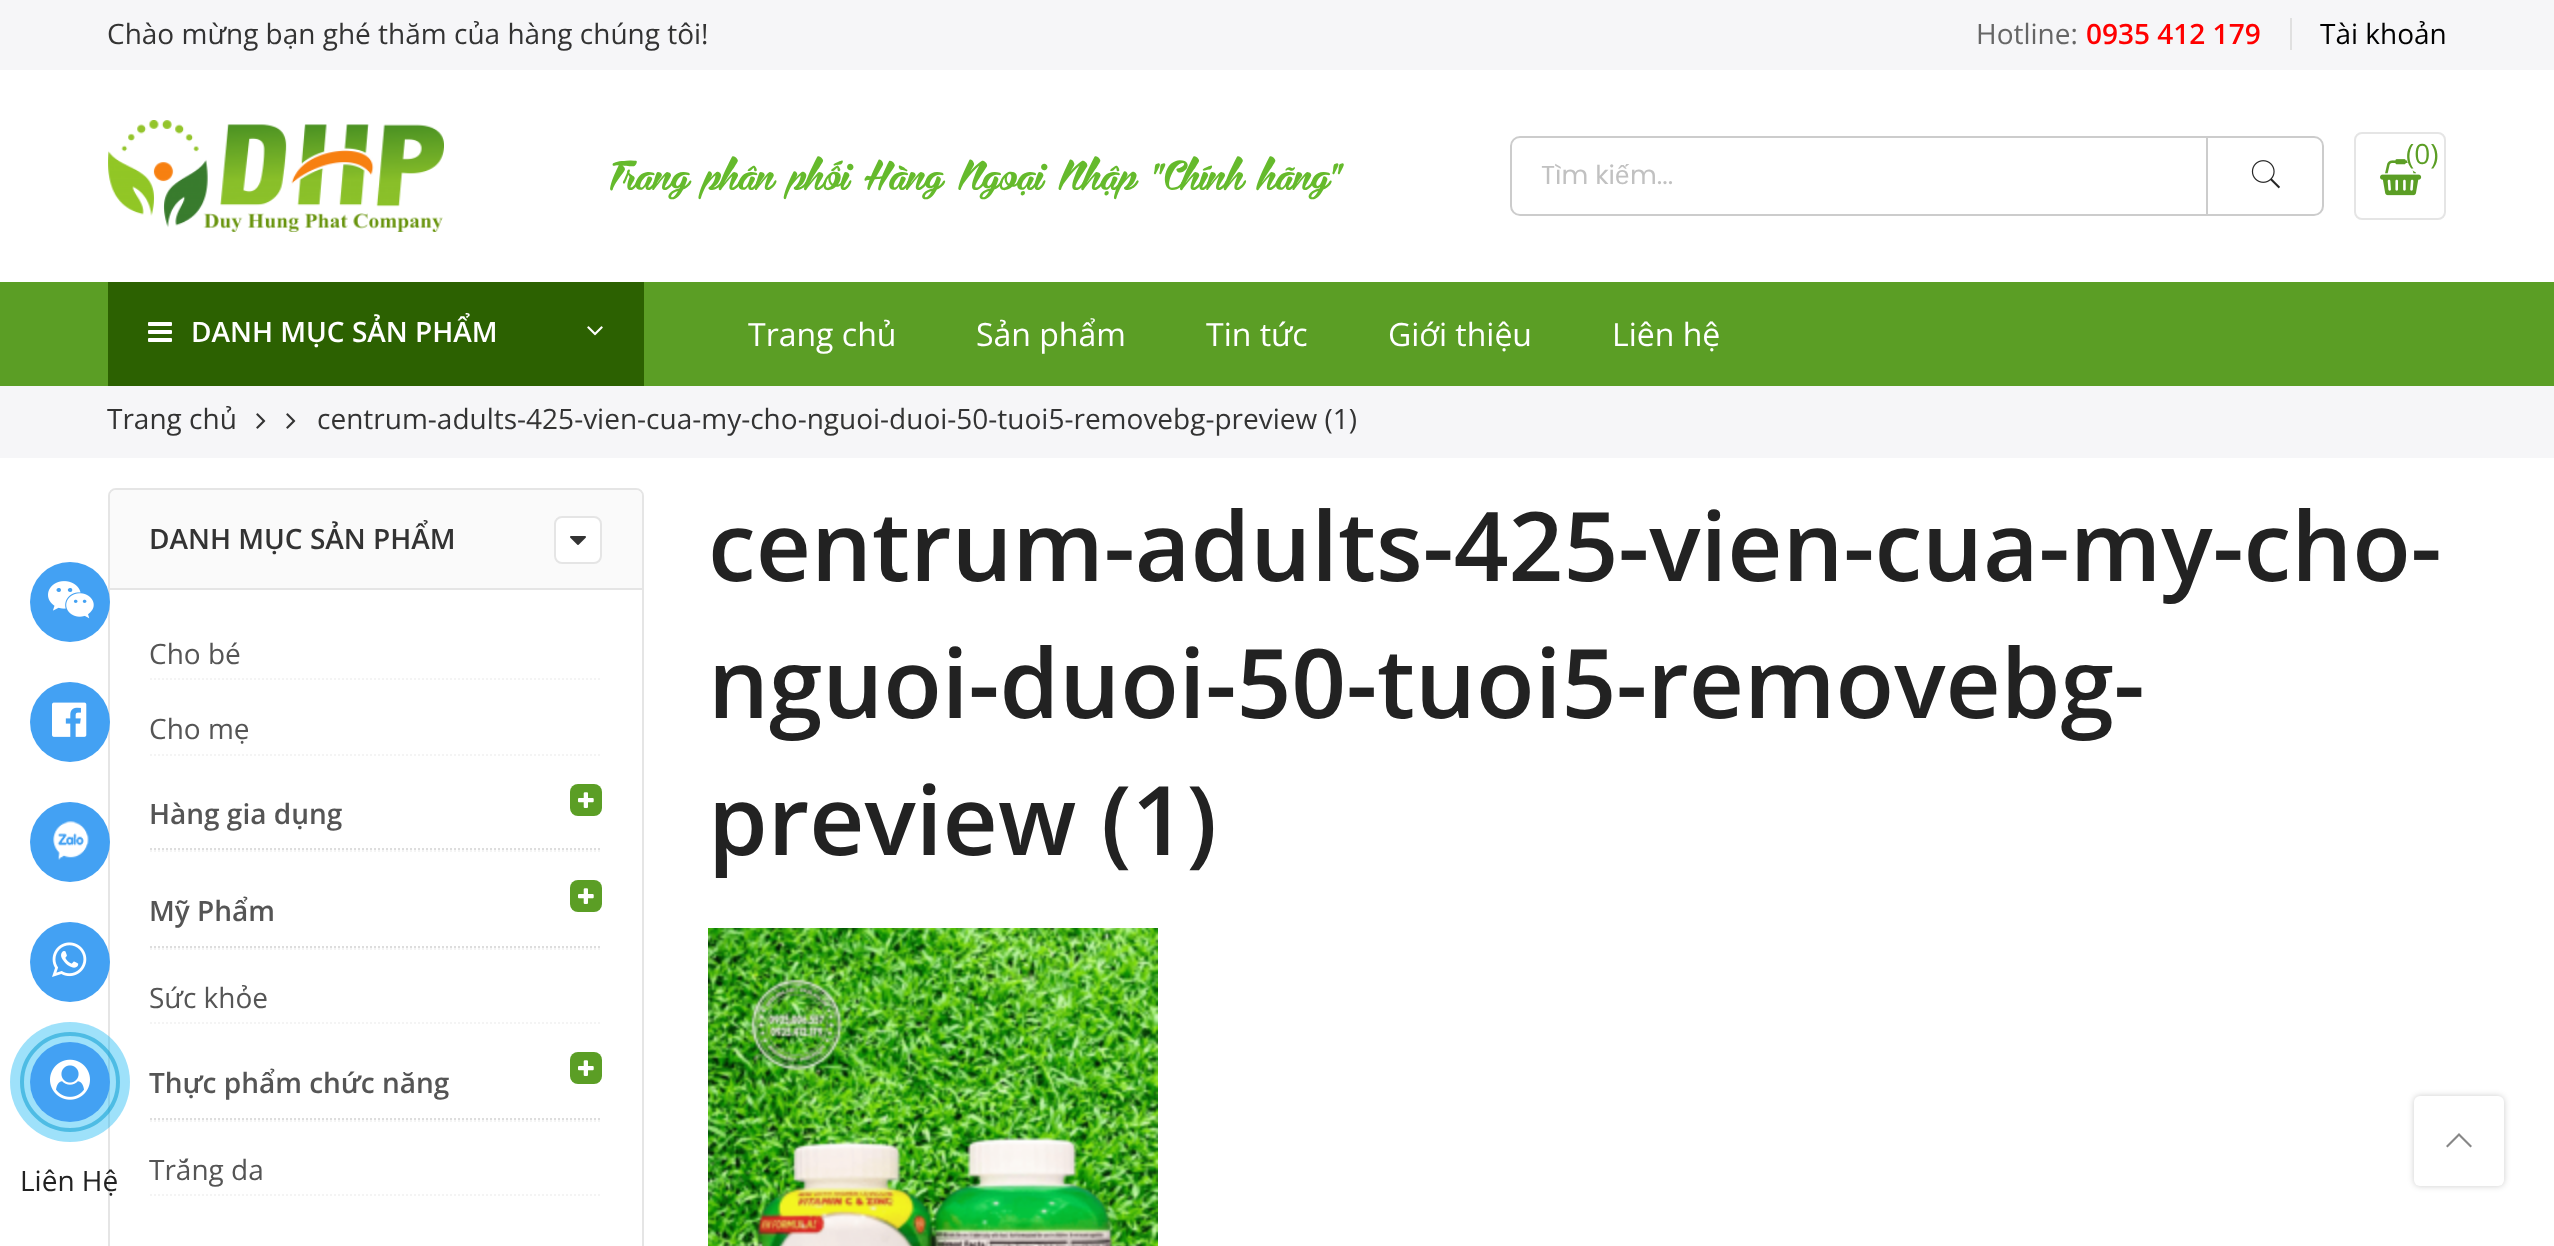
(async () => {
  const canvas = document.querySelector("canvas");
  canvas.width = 2554;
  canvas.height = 1246;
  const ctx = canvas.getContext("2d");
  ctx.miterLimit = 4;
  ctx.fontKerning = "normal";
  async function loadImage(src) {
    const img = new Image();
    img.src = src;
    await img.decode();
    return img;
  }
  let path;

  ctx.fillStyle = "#ffffff";
  ctx.fillRect(0, 0, 2554, 1246);
  ctx.beginPath();
  ctx.roundRect(109, 489, 534, 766, 7);
  ctx.strokeStyle = "#e5e5e5";
  ctx.lineWidth = 2;
  ctx.stroke();
  ctx.fillStyle = "#43a1f3";
  ctx.beginPath();
  ctx.arc(70, 602, 40, 0, Math.PI * 2);
  ctx.fill();
  ctx.drawImage(await loadImage("img/1.png"), 48, 581, 46, 38);
  ctx.beginPath();
  ctx.arc(70, 722, 40, 0, Math.PI * 2);
  ctx.fill();
  ctx.drawImage(await loadImage("img/2.png"), 52, 702, 35, 35);
  ctx.beginPath();
  ctx.arc(70, 842, 40, 0, Math.PI * 2);
  ctx.fill();
  ctx.drawImage(await loadImage("img/3.png"), 53, 821, 36, 39);
  ctx.beginPath();
  ctx.arc(70, 962, 40, 0, Math.PI * 2);
  ctx.fill();
  ctx.drawImage(await loadImage("img/4.png"), 52, 942, 35, 35);
  ctx.beginPath();
  ctx.arc(70, 1082, 48, 0, Math.PI * 2);
  ctx.strokeStyle = "rgba(0, 137, 185, 0.5)";
  ctx.lineWidth = 4;
  ctx.stroke();
  ctx.fillStyle = "rgba(0, 175, 242, 0.38)";
  ctx.beginPath();
  ctx.arc(70, 1082, 60, 0, Math.PI * 2);
  ctx.fill();
  ctx.fillStyle = "#43a1f3";
  ctx.beginPath();
  ctx.arc(70, 1082, 40, 0, Math.PI * 2);
  ctx.fill();
  ctx.drawImage(await loadImage("img/5.png"), 50, 1059, 40, 41);
  ctx.fillStyle = "#f6f6f8";
  ctx.fillRect(0, 0, 2554, 70);
  ctx.fillStyle = "#e0e0e0";
  ctx.fillRect(2290, 18, 2, 32);
  ctx.drawImage(await loadImage("img/6.png"), 108, 120, 336, 112);
  ctx.beginPath();
  ctx.roundRect(2355, 133, 90, 86, 7);
  ctx.strokeStyle = "#e5e5e5";
  ctx.lineWidth = 2;
  ctx.stroke();
  ctx.drawImage(await loadImage("img/7.png"), 2380, 159, 42, 37);
  ctx.fillStyle = "#ffffff";
  ctx.beginPath();
  ctx.ellipse(2422, 154, 16, 20, 0, 0, Math.PI * 2);
  ctx.fill();
  ctx.beginPath();
  ctx.roundRect(1511, 137, 812, 78, 9);
  ctx.strokeStyle = "#cccccc";
  ctx.stroke();
  ctx.fillStyle = "#cccccc";
  ctx.fillRect(2206, 136, 2, 80);
  ctx.drawImage(await loadImage("img/8.png"), 2251, 160, 29, 29);
  ctx.fillStyle = "#5b9e25";
  ctx.fillRect(0, 282, 2554, 104);
  ctx.fillStyle = "#2c6101";
  ctx.fillRect(108, 282, 536, 104);
  ctx.drawImage(await loadImage("img/9.png"), 148, 322, 24, 20);
  ctx.drawImage(await loadImage("img/10.png"), 587, 326, 16, 10);
  ctx.fillStyle = "#f6f6f8";
  ctx.fillRect(0, 386, 2554, 72);
  ctx.drawImage(await loadImage("img/11.png"), 256, 413, 10, 16);
  ctx.drawImage(await loadImage("img/11.png"), 286, 413, 10, 16);
  ctx.fillStyle = "#fafafa";
  ctx.beginPath();
  ctx.roundRect(110, 490, 532, 98, [6, 6, 0, 0]);
  ctx.fill();
  ctx.fillStyle = "#ffffff";
  ctx.beginPath();
  ctx.roundRect(555, 517, 46, 46, 7);
  ctx.fill();
  ctx.strokeStyle = "#e5e5e5";
  ctx.stroke();
  ctx.drawImage(await loadImage("img/12.png"), 570, 536, 16, 9);
  ctx.fillStyle = "#e5e5e5";
  ctx.fillRect(110, 588, 532, 2);
  path = new Path2D("M150 679H602");
  ctx.strokeStyle = "#f4f4f4";
  ctx.setLineDash([2, 2]);
  ctx.stroke(path);
  path = new Path2D("M150 755H602");
  ctx.stroke(path);
  path = new Path2D("M150 851H602");
  ctx.stroke(path);
  path = new Path2D("M150 849H602");
  ctx.strokeStyle = "#dddddd";
  ctx.stroke(path);
  ctx.fillStyle = "#5b9e25";
  ctx.beginPath();
  ctx.roundRect(570, 784, 32, 32, 8);
  ctx.fill();
  ctx.drawImage(await loadImage("img/13.png"), 578, 792, 16, 16);
  path = new Path2D("M150 949H602");
  ctx.strokeStyle = "#f4f4f4";
  ctx.stroke(path);
  path = new Path2D("M150 947H602");
  ctx.strokeStyle = "#dddddd";
  ctx.stroke(path);
  ctx.beginPath();
  ctx.roundRect(570, 880, 32, 32, 8);
  ctx.fill();
  ctx.drawImage(await loadImage("img/13.png"), 578, 888, 16, 16);
  path = new Path2D("M150 1023H602");
  ctx.strokeStyle = "#f4f4f4";
  ctx.stroke(path);
  path = new Path2D("M150 1121H602");
  ctx.stroke(path);
  path = new Path2D("M150 1119H602");
  ctx.strokeStyle = "#dddddd";
  ctx.stroke(path);
  ctx.beginPath();
  ctx.roundRect(570, 1052, 32, 32, 8);
  ctx.fill();
  ctx.drawImage(await loadImage("img/13.png"), 578, 1060, 16, 16);
  path = new Path2D("M150 1195H602");
  ctx.strokeStyle = "#f4f4f4";
  ctx.stroke(path);
  ctx.drawImage(await loadImage("img/14.png"), 708, 928, 450, 318);
  ctx.fillStyle = "rgba(0, 0, 0, 0.2)";
  ctx.filter = "blur(3px)";
  ctx.beginPath();
  ctx.roundRect(2414, 1096, 90, 90, 6);
  ctx.fill();
  ctx.filter = "none";
  ctx.fillStyle = "#ffffff";
  ctx.beginPath();
  ctx.roundRect(2414, 1096, 90, 90, 6);
  ctx.fill();
  ctx.fillStyle = "#878787";
  path = new Path2D("M2460.5 1134.5L2459 1133L2446 1146L2447.5 1147.5L2459 1136L2470.5 1147.5L2472 1146Z");
  ctx.fill(path);
  ctx.font = "28px Open Sans";
  ctx.fillStyle = "#222222";
  ctx.fillText("Liên Hệ", 20, 1191);
  ctx.fillStyle = "#333333";
  ctx.fillText("Chào mừng bạn ghé thăm của hàng chúng tôi!", 107, 44);
  ctx.fillStyle = "#666666";
  ctx.fillText("Hotline:", 1976, 44);
  ctx.font = "600 28px Open Sans";
  ctx.fillStyle = "#ff0000";
  ctx.fillText("0935 412 179", 2086, 44);
  ctx.font = "28px Open Sans";
  ctx.fillStyle = "#000000";
  ctx.fillText("Tài khoản", 2320, 44);
  ctx.font = "36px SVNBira";
  ctx.fillStyle = "#65ba2c";
  ctx.fillText("Trang phân phối Hàng Ngoại Nhập \"Chính hãng\"", 610, 190);
  ctx.font = "28px Open Sans";
  ctx.fillStyle = "#5b9e25";
  ctx.fillText("(0)", 2406, 164);
  ctx.font = "26px Poppins";
  ctx.fillStyle = "#c1c1c1";
  ctx.fillText("Tìm ki", 1541, 184);
  ctx.font = "26px Liberation Sans";
  ctx.fillText("ế", 1615, 184);
  ctx.font = "26px Poppins";
  ctx.fillText("m...", 1630, 184);
  ctx.font = "600 28px Open Sans";
  ctx.fillStyle = "#ffffff";
  ctx.fillText("DANH MỤC SẢN PHẨM", 191, 342);
  ctx.font = "32px Open Sans";
  for (const [text, x, y] of [
    ["Trang chủ", 748, 346],
    ["Sản phẩm", 976, 346],
    ["Tin tức", 1206, 346],
    ["Giới thiệu", 1388, 346],
    ["Liên hệ", 1612, 346],
  ]) {
    ctx.fillText(text, x, y);
  }
  ctx.font = "28px Open Sans";
  ctx.fillStyle = "#333333";
  ctx.fillText("Trang chủ", 107, 429);
  ctx.fillText("centrum-adults-425-vien-cua-my-cho-nguoi-duoi-50-tuoi5-removebg-preview (1)", 317, 429);
  ctx.font = "600 28px Open Sans";
  ctx.fillText("DANH MỤC SẢN PHẨM", 149, 549);
  ctx.font = "28px Open Sans";
  ctx.fillStyle = "#555555";
  ctx.fillText("Cho bé", 149, 664);
  ctx.fillText("Cho mẹ", 149, 739);
  ctx.font = "600 28px Open Sans";
  ctx.fillText("Hàng gia dụng", 149, 824);
  ctx.fillText("Mỹ Phẩm", 149, 921);
  ctx.font = "28px Open Sans";
  ctx.fillText("Sức khỏe", 149, 1008);
  ctx.font = "600 28px Open Sans";
  ctx.fillText("Thực phẩm chức năng", 149, 1093);
  ctx.font = "28px Open Sans";
  ctx.fillText("Trắng da", 149, 1180);
  ctx.font = "600 96px Open Sans";
  ctx.fillStyle = "#222222";
  for (const [text, x, y] of [
    ["centrum-adults-425-vien-cua-my-cho-", 708, 581],
    ["nguoi-duoi-50-tuoi5-removebg-", 708, 718],
    ["preview (1)", 708, 855],
  ]) {
    ctx.fillText(text, x, y);
  }
})();
